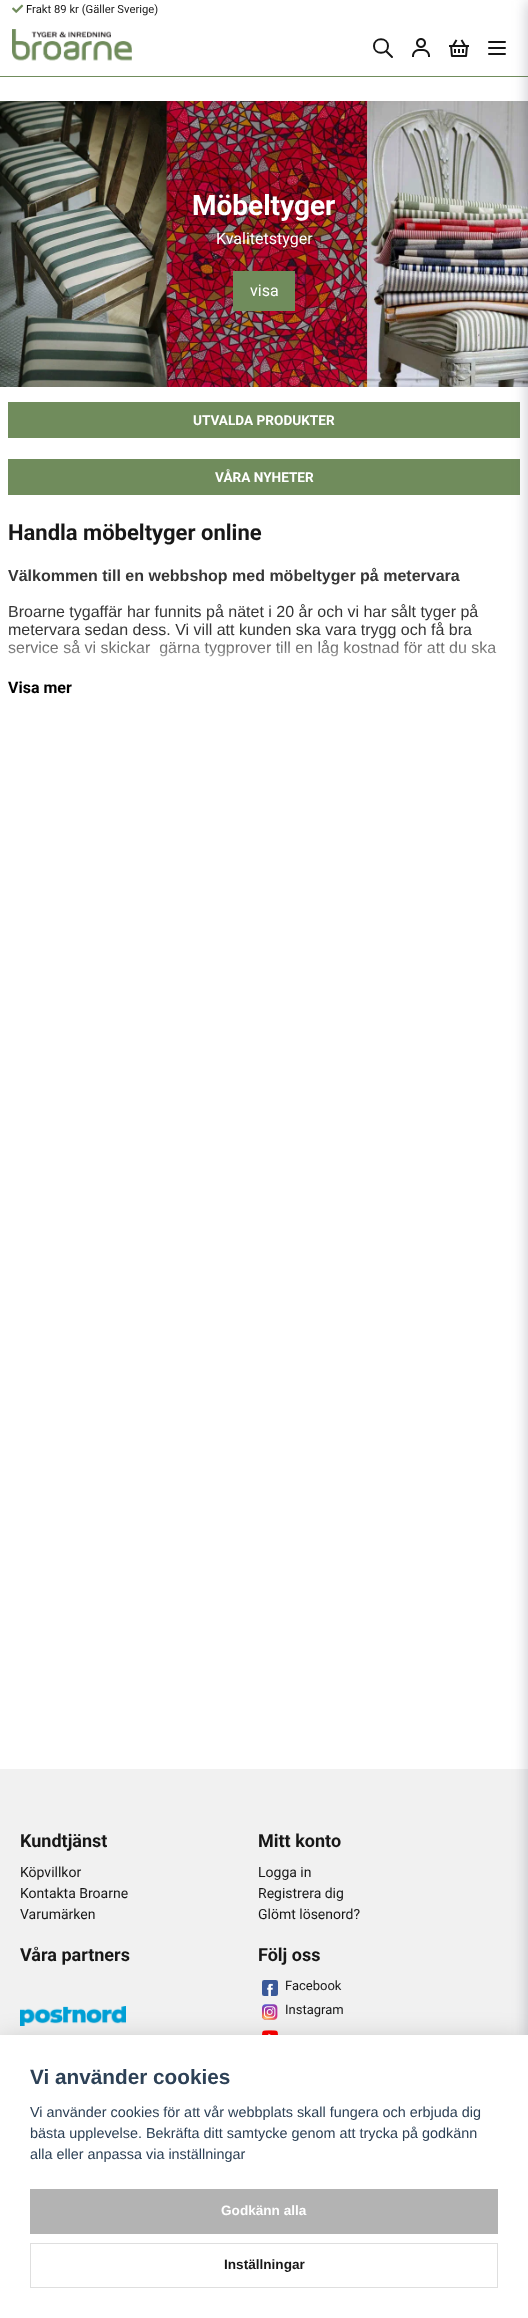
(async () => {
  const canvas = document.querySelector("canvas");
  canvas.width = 528;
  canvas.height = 2318;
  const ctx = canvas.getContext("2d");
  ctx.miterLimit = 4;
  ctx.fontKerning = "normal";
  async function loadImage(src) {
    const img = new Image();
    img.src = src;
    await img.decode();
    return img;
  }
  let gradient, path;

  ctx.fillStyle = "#ffffff";
  ctx.fillRect(0, 0, 528, 2318);
  ctx.fillStyle = "#708c5c";
  ctx.fillRect(0, 76, 528, 1);
  ctx.drawImage(await loadImage("img/1.png"), 12, 4, 12, 9);
  ctx.drawImage(await loadImage("img/2.png"), 12, 29, 120, 32);
  path = new Path2D("M392 57L386 51M388 46C388 55 374 55 374 46C374 37 388 37 388 46Z");
  ctx.strokeStyle = "#151515";
  ctx.lineWidth = 2;
  ctx.lineCap = "round";
  ctx.lineJoin = "round";
  ctx.stroke(path);
  ctx.drawImage(await loadImage("img/3.png"), 412, 38, 18, 19);
  ctx.drawImage(await loadImage("img/4.png"), 449, 39, 20, 18);
  path = new Path2D("M489 42H505M489 48H505M489 54H505");
  ctx.stroke(path);
  ctx.drawImage(await loadImage("img/5.png"), 0, 101, 528, 286);
  for (const [x, y, w, h, color] of [
    [8, 402, 512, 36, "#708c5c"],
    [8, 459, 512, 36, "#708c5c"],
    [0, 1769, 528, 266, "#f1f1f1"],
  ]) {
    ctx.fillStyle = color;
    ctx.fillRect(x, y, w, h);
  }
  ctx.fillStyle = "rgba(60, 66, 87, 0.3)";
  ctx.filter = "blur(7.5px)";
  ctx.beginPath();
  ctx.rect(528, 1, 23, 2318);
  ctx.fill();
  ctx.filter = "none";
  ctx.fillStyle = "#708c5c";
  ctx.fillRect(233, 271, 62, 40);
  ctx.drawImage(await loadImage("img/6.png"), 20, 2006, 106, 20);
  ctx.drawImage(await loadImage("img/7.png"), 262, 1980, 16, 16);
  ctx.drawImage(await loadImage("img/8.png"), 262, 2004, 16, 16);
  ctx.drawImage(await loadImage("img/9.png"), 262, 2030, 16, 5);
  ctx.fillStyle = "rgba(2, 2, 3, 0.28)";
  ctx.filter = "blur(15px)";
  ctx.beginPath();
  ctx.rect(0, 2045, 528, 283);
  ctx.fill();
  ctx.filter = "none";
  ctx.fillStyle = "#ffffff";
  ctx.fillRect(0, 2035, 528, 283);
  ctx.fillStyle = "#b3b3b3";
  ctx.fillRect(30, 2189, 468, 45);
  ctx.strokeStyle = "#dfdfdf";
  ctx.lineWidth = 1;
  ctx.lineJoin = "miter";
  ctx.strokeRect(30.5, 2243.5, 467, 44);
  ctx.font = "11.25px Roboto";
  ctx.fillStyle = "#171717";
  ctx.fillText("Frakt 89 kr (Gäller Sverige)", 26, 13);
  ctx.font = "bold 28px Roboto";
  ctx.fillStyle = "#ffffff";
  ctx.fillText("Möbeltyger", 192, 215);
  ctx.font = "16px Roboto";
  ctx.fillText("Kvalitetstyger", 216, 244);
  ctx.fillText("visa", 250, 296);
  ctx.font = "bold 13.6px Roboto";
  ctx.fillText("UTVALDA PRODUKTER", 193, 425);
  ctx.fillText("VÅRA NYHETER", 215, 482);
  ctx.font = "bold 22px Roboto";
  ctx.fillStyle = "#171717";
  ctx.fillText("Handla möbeltyger online", 8, 540);
  ctx.font = "bold 16px Liberation Sans";
  ctx.fillStyle = "#363636";
  ctx.fillText("Välkommen till en webbshop med möbeltyger på metervara", 8, 581);
  ctx.font = "16px Liberation Sans";
  for (const [text, x, y] of [
    ["Broarne tygaffär har funnits på nätet i 20 år och vi har sålt tyger på", 8, 617],
    ["metervara sedan dess. Vi vill att kunden ska vara trygg och få bra", 8, 635],
    ["service så vi skickar  gärna tygprover till en låg kostnad för att du ska", 8, 653],
  ]) {
    ctx.fillText(text, x, y);
  }
  gradient = ctx.createLinearGradient(264, 636, 264, 676);
  gradient.addColorStop(0, "rgba(255, 255, 255, 0)");
  gradient.addColorStop(1, "#ffffff");
  ctx.fillStyle = gradient;
  ctx.fillRect(8, 637, 489, 20);
  ctx.font = "bold 16px Roboto";
  ctx.fillStyle = "#000000";
  ctx.fillText("Visa mer", 8, 693);
  ctx.font = "bold 18px Roboto";
  ctx.fillStyle = "#171717";
  ctx.fillText("Kundtjänst", 20, 1847);
  ctx.font = "14px Roboto";
  for (const [text, x, y] of [
    ["Köpvillkor", 20, 1877],
    ["Kontakta Broarne", 20, 1898],
    ["Varumärken", 20, 1919],
  ]) {
    ctx.fillText(text, x, y);
  }
  ctx.font = "bold 18px Roboto";
  ctx.fillText("Mitt konto", 258, 1847);
  ctx.font = "14px Roboto";
  for (const [text, x, y] of [
    ["Logga in", 258, 1877],
    ["Registrera dig", 258, 1898],
    ["Glömt lösenord?", 258, 1919],
  ]) {
    ctx.fillText(text, x, y);
  }
  ctx.font = "bold 18px Roboto";
  ctx.fillText("Våra partners", 20, 1961);
  ctx.fillText("Följ oss", 258, 1961);
  ctx.font = "13px Roboto";
  ctx.fillText("Facebook", 285, 1990);
  ctx.fillText("Instagram", 285, 2014);
  ctx.font = "bold 20.75px Liberation Sans";
  ctx.fillStyle = "#2d4156";
  ctx.fillText("Vi använder cookies", 30, 2084);
  ctx.font = "14.4px Liberation Sans";
  for (const [text, x, y] of [
    ["Vi använder cookies för att vår webbplats skall fungera och erbjuda dig", 30, 2117],
    ["bästa upplevelse. Bekräfta ditt samtycke genom att trycka på godkänn", 30, 2138],
    ["alla eller anpassa via inställningar", 30, 2159],
  ]) {
    ctx.fillText(text, x, y);
  }
  ctx.font = "bold 13.6px Liberation Sans";
  ctx.fillStyle = "#ffffff";
  ctx.fillText("Godkänn alla", 221, 2215);
  ctx.fillStyle = "#171717";
  ctx.fillText("Inställningar", 224, 2269);
})();
